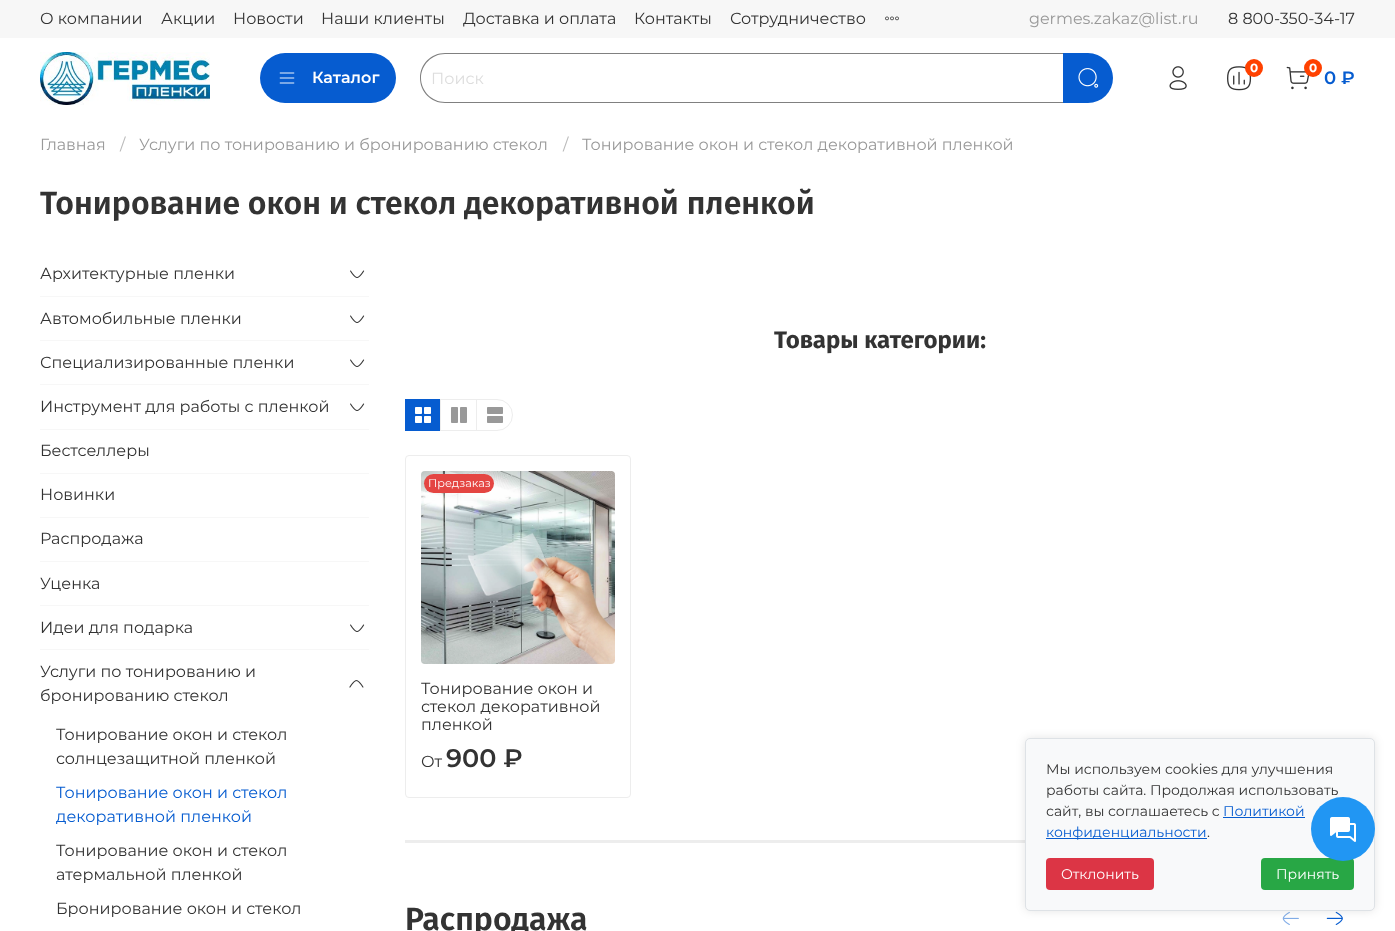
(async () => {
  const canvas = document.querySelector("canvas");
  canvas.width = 1395;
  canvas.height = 931;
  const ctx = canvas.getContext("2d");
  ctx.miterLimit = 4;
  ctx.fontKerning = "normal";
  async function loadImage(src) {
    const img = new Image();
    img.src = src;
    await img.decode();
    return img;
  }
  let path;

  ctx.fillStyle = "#ffffff";
  ctx.fillRect(0, 0, 1395, 931);
  ctx.fillStyle = "#f7f7f7";
  ctx.fillRect(0, 0, 1395, 38);
  ctx.drawImage(await loadImage("img/1.png"), 885, 16, 14, 5);
  ctx.drawImage(await loadImage("img/2.png"), 40, 52, 170, 53);
  ctx.fillStyle = "#065cd0";
  ctx.beginPath();
  ctx.roundRect(260, 53, 136, 50, 25);
  ctx.fill();
  ctx.drawImage(await loadImage("img/3.png"), 279, 72, 16, 12);
  ctx.fillStyle = "#808080";
  path = new Path2D("M445 53H1063V103H445C431 103 420 92 420 78C420 64 431 53 445 53ZM445 54H1063V102H445C432 102 421 91 421 78C421 65 432 54 445 54Z");
  ctx.fill(path, "evenodd");
  ctx.fillStyle = "#065cd0";
  ctx.beginPath();
  ctx.roundRect(1063, 53, 50, 50, [0, 25, 25, 0]);
  ctx.fill();
  ctx.drawImage(await loadImage("img/4.png"), 1078, 68, 21, 20);
  ctx.drawImage(await loadImage("img/5.png"), 1169, 66, 18, 24);
  ctx.drawImage(await loadImage("img/6.png"), 1227, 66, 25, 25);
  ctx.fillStyle = "#ff4100";
  ctx.beginPath();
  ctx.arc(1254, 68, 9, 0, Math.PI * 2);
  ctx.fill();
  ctx.drawImage(await loadImage("img/7.png"), 1286, 66, 23, 24);
  ctx.beginPath();
  ctx.arc(1313, 68, 9, 0, Math.PI * 2);
  ctx.fill();
  ctx.fillStyle = "#f7f7f7";
  ctx.fillRect(40, 296, 329, 1);
  ctx.drawImage(await loadImage("img/8.png"), 350, 270, 15, 8);
  ctx.fillRect(40, 340, 329, 1);
  ctx.drawImage(await loadImage("img/8.png"), 350, 315, 15, 8);
  ctx.fillRect(40, 384, 329, 1);
  ctx.drawImage(await loadImage("img/8.png"), 350, 359, 15, 8);
  ctx.fillRect(40, 429, 329, 1);
  ctx.drawImage(await loadImage("img/8.png"), 350, 403, 15, 8);
  for (const [x, y, w, h, color] of [
    [40, 473, 329, 1, "#f7f7f7"],
    [40, 517, 329, 1, "#f7f7f7"],
    [40, 561, 329, 1, "#f7f7f7"],
    [40, 605, 329, 1, "#f7f7f7"],
    [40, 649, 329, 1, "#f7f7f7"],
  ]) {
    ctx.fillStyle = color;
    ctx.fillRect(x, y, w, h);
  }
  ctx.drawImage(await loadImage("img/8.png"), 350, 624, 15, 8);
  ctx.drawImage(await loadImage("img/9.png"), 349, 680, 15, 8);
  ctx.beginPath();
  ctx.roundRect(405.5, 399.5, 107, 31, 15.5);
  ctx.strokeStyle = "#ededed";
  ctx.stroke();
  ctx.fillStyle = "#065cd0";
  ctx.fillRect(405, 399, 35, 32);
  ctx.fillStyle = "#ededed";
  ctx.fillRect(440, 399, 1, 32);
  ctx.drawImage(await loadImage("img/10.png"), 415, 407, 16, 16);
  ctx.fillRect(476, 399, 1, 32);
  ctx.drawImage(await loadImage("img/11.png"), 451, 407, 16, 16);
  ctx.drawImage(await loadImage("img/12.png"), 487, 407, 16, 16);
  ctx.beginPath();
  ctx.roundRect(405.5, 455.5, 225, 342, 3.5);
  ctx.stroke();
  ctx.drawImage(await loadImage("img/13.png"), 421, 471, 194, 193);
  ctx.fillStyle = "#e44542";
  ctx.beginPath();
  ctx.roundRect(424, 474, 70, 19, 9.5);
  ctx.fill();
  ctx.fillStyle = "#ededed";
  ctx.fillRect(405, 840, 620, 3);
  ctx.drawImage(await loadImage("img/14.png"), 1282, 911, 17, 14);
  ctx.drawImage(await loadImage("img/15.png"), 1326, 911, 17, 14);
  ctx.fillStyle = "rgba(0, 0, 0, 0.1)";
  ctx.filter = "blur(5px)";
  ctx.beginPath();
  ctx.roundRect(1025, 738, 350, 173, 5);
  ctx.fill();
  ctx.filter = "none";
  ctx.fillStyle = "#f8f9fa";
  ctx.beginPath();
  ctx.roundRect(1025.5, 738.5, 349, 172, 4.5);
  ctx.fill();
  ctx.strokeStyle = "#dee2e6";
  ctx.stroke();
  ctx.fillStyle = "#065cd0";
  ctx.fillRect(1223, 817, 82, 1);
  ctx.fillRect(1046, 838, 161, 1);
  ctx.fillStyle = "#dc3545";
  ctx.beginPath();
  ctx.roundRect(1046, 858, 108, 32, 4);
  ctx.fill();
  ctx.fillStyle = "#28a745";
  ctx.beginPath();
  ctx.roundRect(1261, 858, 93, 32, 4);
  ctx.fill();
  ctx.font = "16px Montserrat";
  ctx.fillStyle = "#333333";
  for (const [text, x, y] of [
    ["О компании", 40, 24],
    ["Акции", 161, 24],
    ["Новости", 233, 24],
    ["Наши клиенты", 321, 24],
    ["Доставка и оплата", 463, 24],
    ["Контакты", 634, 24],
    ["Сотрудничество", 730, 24],
  ]) {
    ctx.fillText(text, x, y);
  }
  ctx.fillStyle = "#999999";
  ctx.fillText("germes.zakaz@list.ru", 1029, 24);
  ctx.fillStyle = "#333333";
  ctx.fillText("8 800-350-34-17", 1228, 24);
  ctx.font = "600 16px Montserrat";
  ctx.fillStyle = "#ffffff";
  ctx.fillText("Каталог", 312, 83);
  ctx.font = "16px Montserrat";
  ctx.fillStyle = "#dddddd";
  ctx.fillText("Поиск", 431, 84);
  ctx.font = "bold 12px Montserrat";
  ctx.fillStyle = "#ffffff";
  ctx.fillText("0", 1250, 72);
  ctx.fillText("0", 1309, 72);
  ctx.font = "600 18px Montserrat";
  ctx.fillStyle = "#065cd0";
  ctx.fillText("0 ₽", 1324, 84);
  ctx.font = "16px Montserrat";
  ctx.fillStyle = "#999999";
  ctx.fillText("Главная", 40, 150);
  ctx.fillStyle = "#b8b8b8";
  ctx.fillText("/", 120, 150);
  ctx.fillStyle = "#999999";
  ctx.fillText("Услуги по тонированию и бронированию стекол", 139, 150);
  ctx.fillStyle = "#b8b8b8";
  ctx.fillText("/", 563, 150);
  ctx.fillStyle = "#999999";
  ctx.fillText("Тонирование окон и стекол декоративной пленкой", 582, 150);
  ctx.font = "600 32px Fira Sans";
  ctx.fillStyle = "#333333";
  ctx.fillText("Тонирование окон и стекол декоративной пленкой", 40, 214);
  ctx.font = "16px Montserrat";
  for (const [text, x, y] of [
    ["Архитектурные пленки", 40, 279],
    ["Автомобильные пленки", 40, 324],
    ["Специализированные пленки", 40, 368],
    ["Инструмент для работы с пленкой", 40, 412],
    ["Бестселлеры", 40, 456],
    ["Новинки", 40, 500],
    ["Распродажа", 40, 544],
    ["Уценка", 40, 589],
    ["Идеи для подарка", 40, 633],
    ["Услуги по тонированию и", 40, 677],
    ["бронированию стекол", 40, 701],
    ["Тонирование окон и стекол", 56, 740],
    ["солнцезащитной пленкой", 56, 764],
  ]) {
    ctx.fillText(text, x, y);
  }
  ctx.fillStyle = "#065cd0";
  ctx.fillText("Тонирование окон и стекол", 56, 798);
  ctx.fillText("декоративной пленкой", 56, 822);
  ctx.fillStyle = "#333333";
  for (const [text, x, y] of [
    ["Тонирование окон и стекол", 56, 856],
    ["атермальной пленкой", 56, 880],
    ["Бронирование окон и стекол", 56, 914],
  ]) {
    ctx.fillText(text, x, y);
  }
  ctx.font = "bold 24px Fira Sans";
  ctx.fillText("Товары категории:", 774, 348);
  ctx.font = "11.25px Montserrat";
  ctx.fillStyle = "#ffffff";
  ctx.fillText("Предзаказ", 428, 487);
  ctx.font = "16px Montserrat";
  ctx.fillStyle = "#333333";
  for (const [text, x, y] of [
    ["Тонирование окон и", 421, 694],
    ["стекол декоративной", 421, 712],
    ["пленкой", 421, 730],
    ["От", 421, 767],
  ]) {
    ctx.fillText(text, x, y);
  }
  ctx.font = "600 25.5px Montserrat";
  ctx.fillText("900 ₽", 446, 767);
  ctx.font = "600 32px Fira Sans";
  ctx.fillText("Распродажа", 405, 930);
  ctx.font = "14px Montserrat";
  for (const [text, x, y] of [
    ["Мы используем cookies для улучшения", 1046, 774],
    ["работы сайта. Продолжая использовать", 1046, 795],
    ["сайт, вы соглашаетесь с", 1046, 816],
  ]) {
    ctx.fillText(text, x, y);
  }
  ctx.fillStyle = "#065cd0";
  ctx.fillText("Политикой", 1223, 816);
  ctx.fillText("конфиденциальности", 1046, 837);
  ctx.fillStyle = "#333333";
  ctx.fillText(".", 1207, 837);
  ctx.fillStyle = "#ffffff";
  ctx.fillText("Отклонить", 1061, 879);
  ctx.fillText("Принять", 1276, 879);
  ctx.fillStyle = "#2196f3";
  ctx.beginPath();
  ctx.arc(1343, 829, 32, 0, Math.PI * 2);
  ctx.fill();
  ctx.drawImage(await loadImage("img/16.png"), 1330, 817, 26, 25);
})();
